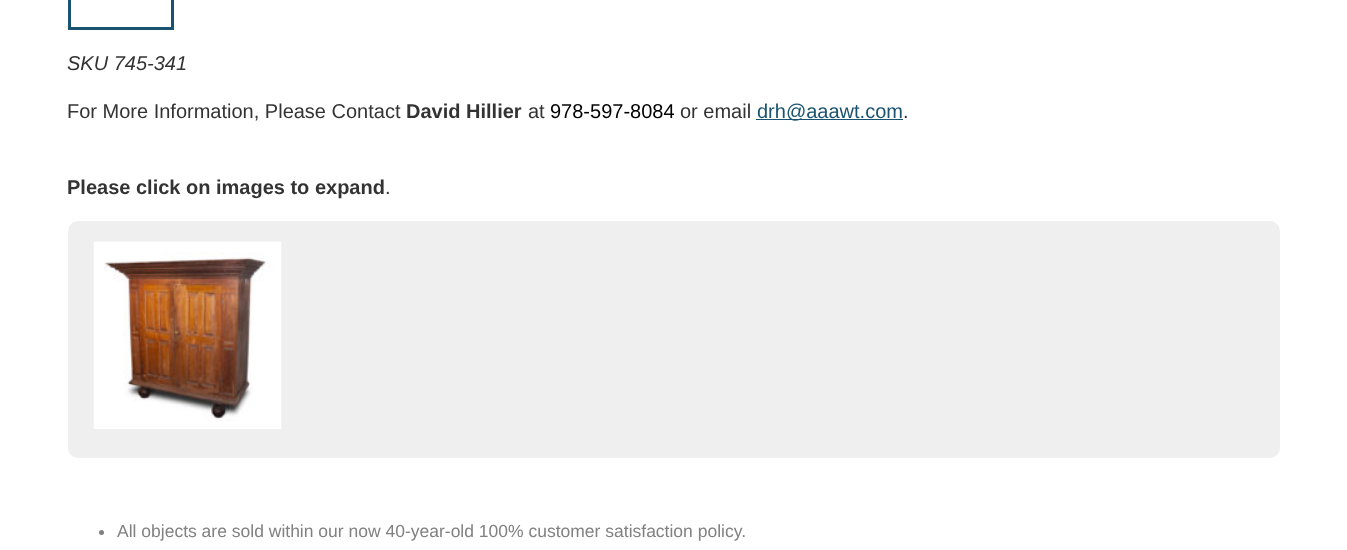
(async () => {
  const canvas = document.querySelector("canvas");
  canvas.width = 1347;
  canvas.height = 550;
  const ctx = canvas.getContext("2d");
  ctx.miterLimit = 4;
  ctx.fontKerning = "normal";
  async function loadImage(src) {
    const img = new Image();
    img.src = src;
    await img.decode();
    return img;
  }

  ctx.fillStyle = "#ffffff";
  ctx.fillRect(0, 0, 1347, 550);
  ctx.strokeStyle = "#195370";
  ctx.lineWidth = 3;
  ctx.strokeRect(69.5, -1.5, 103, 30);
  ctx.fillStyle = "#195370";
  ctx.fillRect(756, 119, 147, 1);
  ctx.fillStyle = "#efefef";
  ctx.beginPath();
  ctx.roundRect(68, 221, 1212, 237, 10);
  ctx.fill();
  ctx.drawImage(await loadImage("img/1.png"), 93, 241, 189, 188);
  ctx.fillStyle = "#818181";
  ctx.beginPath();
  ctx.arc(101.5, 532.5, 2.5, 0, Math.PI * 2);
  ctx.fill();
  ctx.font = "italic 20px Liberation Sans";
  ctx.fillStyle = "#333333";
  ctx.fillText("SKU 745-341", 67, 70);
  ctx.font = "20px Liberation Sans";
  ctx.fillText("For More Information, Please Contact", 67, 118);
  ctx.font = "bold 20px Liberation Sans";
  ctx.fillText("David Hillier", 406, 118);
  ctx.font = "20px Liberation Sans";
  ctx.fillText("at", 528, 118);
  ctx.fillStyle = "#000000";
  ctx.fillText("978-597-8084", 550, 118);
  ctx.fillStyle = "#333333";
  ctx.fillText("or email", 680, 118);
  ctx.fillStyle = "#195370";
  ctx.fillText("drh@aaawt.com", 757, 118);
  ctx.fillStyle = "#333333";
  ctx.fillText(".", 903, 118);
  ctx.font = "bold 20px Liberation Sans";
  ctx.fillText("Please click on images to expand", 67, 194);
  ctx.font = "20px Liberation Sans";
  ctx.fillText(".", 385, 194);
  ctx.font = "17.5px Liberation Sans";
  ctx.fillStyle = "#818181";
  ctx.fillText("All objects are sold within our now 40-year-old 100% customer satisfaction policy.", 117, 537);
})();
